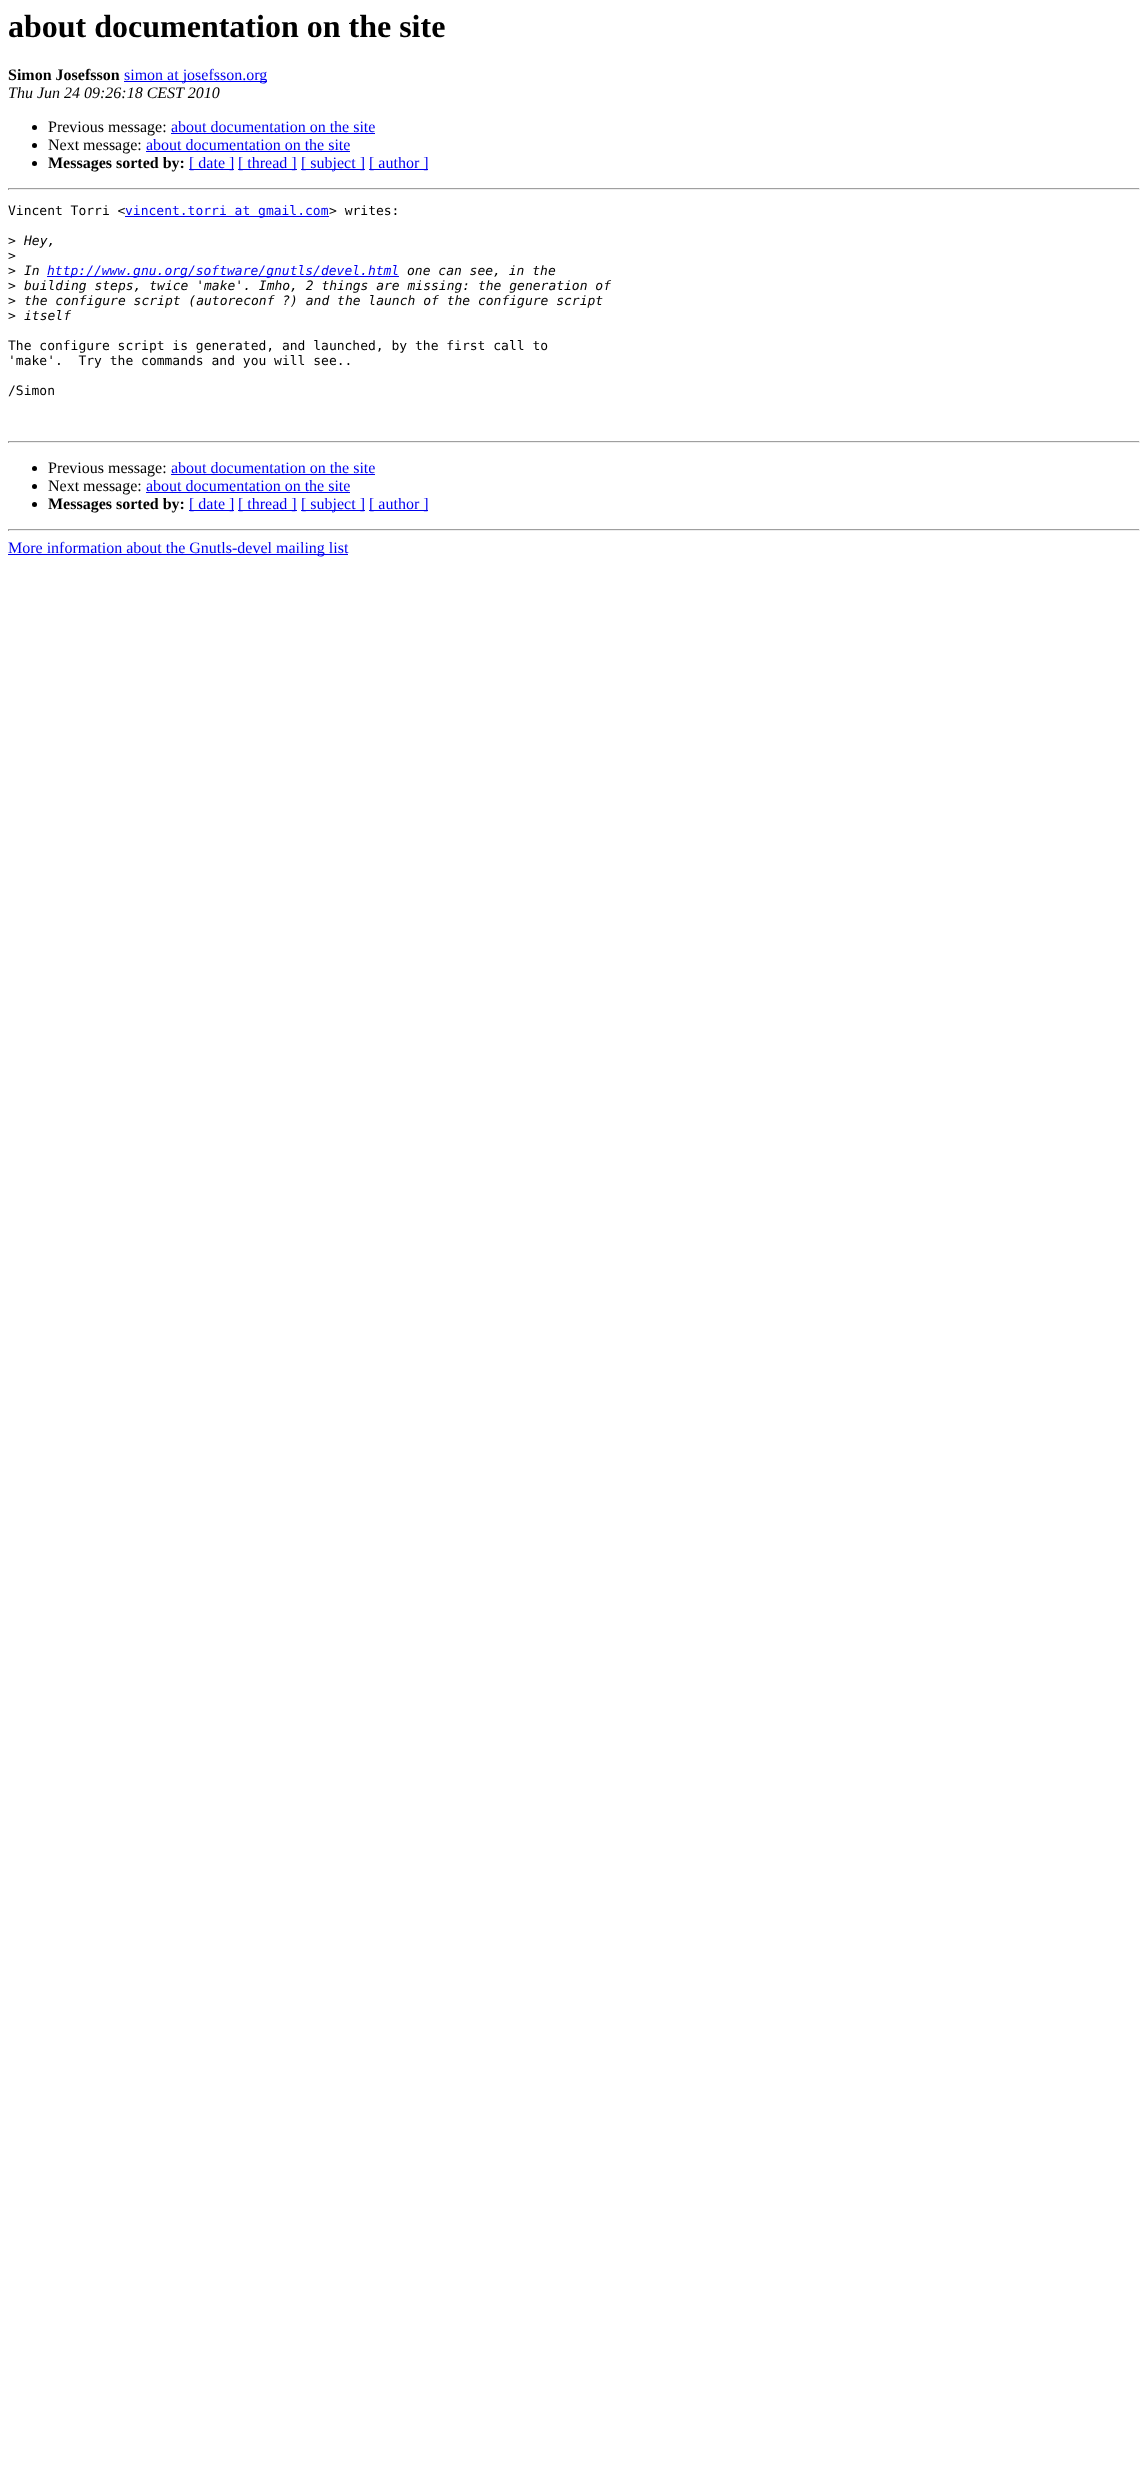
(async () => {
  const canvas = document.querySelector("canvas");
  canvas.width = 1148;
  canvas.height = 2480;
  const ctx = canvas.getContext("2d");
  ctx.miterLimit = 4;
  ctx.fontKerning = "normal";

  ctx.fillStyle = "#ffffff";
  ctx.fillRect(0, 0, 1148, 2480);
  ctx.fillStyle = "#0000ee";
  ctx.fillRect(124, 81, 143, 1);
  ctx.fillStyle = "#000000";
  ctx.beginPath();
  ctx.arc(34.5, 127.5, 2.5, 0, Math.PI * 2);
  ctx.fill();
  ctx.fillStyle = "#0000ee";
  ctx.fillRect(171, 133, 204, 1);
  ctx.fillStyle = "#000000";
  ctx.beginPath();
  ctx.arc(34.5, 145.5, 2.5, 0, Math.PI * 2);
  ctx.fill();
  ctx.fillStyle = "#0000ee";
  ctx.fillRect(146, 151, 204, 1);
  ctx.fillStyle = "#000000";
  ctx.beginPath();
  ctx.arc(34.5, 163.5, 2.5, 0, Math.PI * 2);
  ctx.fill();
  for (const [x, y, w, h, color] of [
    [189, 169, 45, 1, "#0000ee"],
    [238, 169, 59, 1, "#0000ee"],
    [301, 169, 64, 1, "#0000ee"],
    [369, 169, 59, 1, "#0000ee"],
    [8, 188, 1132, 1, "#9f9f9f"],
    [1139, 188, 1, 2, "#eeeeee"],
    [8, 189, 1132, 1, "#eeeeee"],
    [8, 188, 1, 2, "#9f9f9f"],
    [125, 216, 204, 1, "#0000ee"],
    [47, 276, 352, 1, "#0000ee"],
    [8, 441, 1132, 1, "#9f9f9f"],
    [1139, 441, 1, 2, "#eeeeee"],
    [8, 442, 1132, 1, "#eeeeee"],
    [8, 441, 1, 2, "#9f9f9f"],
  ]) {
    ctx.fillStyle = color;
    ctx.fillRect(x, y, w, h);
  }
  ctx.fillStyle = "#000000";
  ctx.beginPath();
  ctx.arc(34.5, 468.5, 2.5, 0, Math.PI * 2);
  ctx.fill();
  ctx.fillStyle = "#0000ee";
  ctx.fillRect(171, 474, 204, 1);
  ctx.fillStyle = "#000000";
  ctx.beginPath();
  ctx.arc(34.5, 486.5, 2.5, 0, Math.PI * 2);
  ctx.fill();
  ctx.fillStyle = "#0000ee";
  ctx.fillRect(146, 492, 204, 1);
  ctx.fillStyle = "#000000";
  ctx.beginPath();
  ctx.arc(34.5, 504.5, 2.5, 0, Math.PI * 2);
  ctx.fill();
  for (const [x, y, w, h, color] of [
    [189, 510, 45, 1, "#0000ee"],
    [238, 510, 59, 1, "#0000ee"],
    [301, 510, 64, 1, "#0000ee"],
    [369, 510, 59, 1, "#0000ee"],
    [8, 529, 1132, 1, "#9f9f9f"],
    [1139, 529, 1, 2, "#eeeeee"],
    [8, 530, 1132, 1, "#eeeeee"],
    [8, 529, 1, 2, "#9f9f9f"],
    [8, 554, 340, 1, "#0000ee"],
  ]) {
    ctx.fillStyle = color;
    ctx.fillRect(x, y, w, h);
  }
  ctx.font = "bold 32px Liberation Serif";
  ctx.fillStyle = "#000000";
  ctx.fillText("about documentation on the site", 8, 37);
  ctx.font = "bold 16px Liberation Serif";
  ctx.fillText("Simon Josefsson", 8, 80);
  ctx.font = "16px Liberation Serif";
  ctx.fillStyle = "#0000ee";
  ctx.fillText("simon at josefsson.org", 124, 80);
  ctx.font = "italic 16px Liberation Serif";
  ctx.fillStyle = "#000000";
  ctx.fillText("Thu Jun 24 09:26:18 CEST 2010", 8, 98);
  ctx.font = "16px Liberation Serif";
  ctx.fillText("Previous message:", 48, 132);
  ctx.fillStyle = "#0000ee";
  ctx.fillText("about documentation on the site", 171, 132);
  ctx.fillStyle = "#000000";
  ctx.fillText("Next message:", 48, 150);
  ctx.fillStyle = "#0000ee";
  ctx.fillText("about documentation on the site", 146, 150);
  ctx.font = "bold 16px Liberation Serif";
  ctx.fillStyle = "#000000";
  ctx.fillText("Messages sorted by:", 48, 168);
  ctx.font = "16px Liberation Serif";
  ctx.fillStyle = "#0000ee";
  for (const [text, x, y] of [
    ["[ date ]", 189, 168],
    ["[ thread ]", 238, 168],
    ["[ subject ]", 301, 168],
    ["[ author ]", 369, 168],
  ]) {
    ctx.fillText(text, x, y);
  }
  ctx.font = "13px DejaVu Sans Mono";
  ctx.fillStyle = "#000000";
  ctx.fillText("Vincent Torri <", 8, 215);
  ctx.fillStyle = "#0000ee";
  ctx.fillText("vincent.torri at gmail.com", 125, 215);
  ctx.fillStyle = "#000000";
  ctx.fillText("> writes:", 329, 215);
  ctx.fillText(">", 8, 245);
  ctx.font = "italic 13px DejaVu Sans Mono";
  ctx.fillText("Hey,", 24, 245);
  ctx.font = "13px DejaVu Sans Mono";
  ctx.fillText(">", 8, 260);
  ctx.fillText(">", 8, 275);
  ctx.font = "italic 13px DejaVu Sans Mono";
  ctx.fillText("In", 24, 275);
  ctx.fillStyle = "#0000ee";
  ctx.fillText("http://www.gnu.org/software/gnutls/devel.html", 47, 275);
  ctx.fillStyle = "#000000";
  ctx.fillText("one can see, in the", 407, 275);
  ctx.font = "13px DejaVu Sans Mono";
  ctx.fillText(">", 8, 290);
  ctx.font = "italic 13px DejaVu Sans Mono";
  ctx.fillText("building steps, twice 'make'. Imho, 2 things are missing: the generation of", 24, 290);
  ctx.font = "13px DejaVu Sans Mono";
  ctx.fillText(">", 8, 305);
  ctx.font = "italic 13px DejaVu Sans Mono";
  ctx.fillText("the configure script (autoreconf ?) and the launch of the configure script", 24, 305);
  ctx.font = "13px DejaVu Sans Mono";
  ctx.fillText(">", 8, 320);
  ctx.font = "italic 13px DejaVu Sans Mono";
  ctx.fillText("itself", 24, 320);
  ctx.font = "13px DejaVu Sans Mono";
  for (const [text, x, y] of [
    ["The configure script is generated, and launched, by the first call to", 8, 350],
    ["'make'.  Try the commands and you will see..", 8, 365],
    ["/Simon", 8, 395],
  ]) {
    ctx.fillText(text, x, y);
  }
  ctx.font = "16px Liberation Serif";
  ctx.fillText("Previous message:", 48, 473);
  ctx.fillStyle = "#0000ee";
  ctx.fillText("about documentation on the site", 171, 473);
  ctx.fillStyle = "#000000";
  ctx.fillText("Next message:", 48, 491);
  ctx.fillStyle = "#0000ee";
  ctx.fillText("about documentation on the site", 146, 491);
  ctx.font = "bold 16px Liberation Serif";
  ctx.fillStyle = "#000000";
  ctx.fillText("Messages sorted by:", 48, 509);
  ctx.font = "16px Liberation Serif";
  ctx.fillStyle = "#0000ee";
  for (const [text, x, y] of [
    ["[ date ]", 189, 509],
    ["[ thread ]", 238, 509],
    ["[ subject ]", 301, 509],
    ["[ author ]", 369, 509],
    ["More information about the Gnutls-devel mailing list", 8, 553],
  ]) {
    ctx.fillText(text, x, y);
  }
})();
